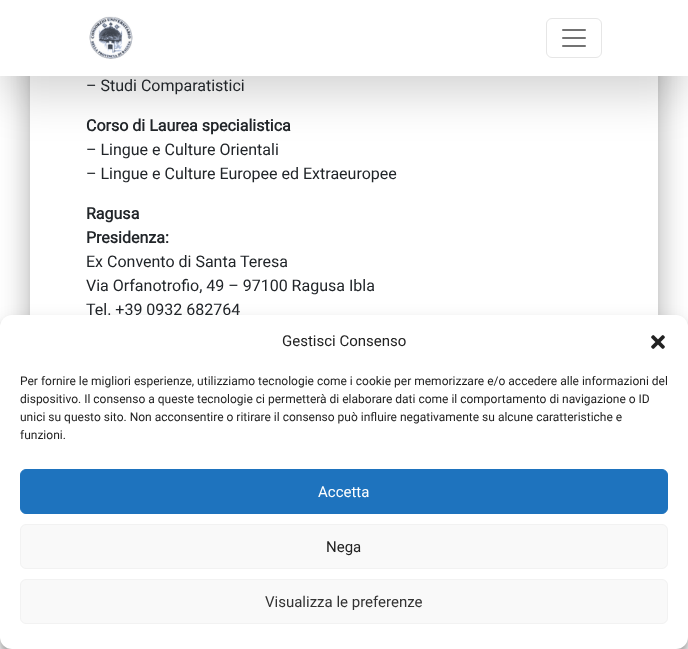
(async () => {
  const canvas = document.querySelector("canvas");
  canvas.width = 688;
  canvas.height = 649;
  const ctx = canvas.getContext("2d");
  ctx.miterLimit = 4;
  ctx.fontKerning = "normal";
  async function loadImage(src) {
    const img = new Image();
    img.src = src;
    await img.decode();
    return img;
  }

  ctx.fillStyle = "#ffffff";
  ctx.fillRect(0, 0, 688, 649);
  ctx.fillStyle = "rgba(0, 0, 0, 0.2)";
  ctx.filter = "blur(5px)";
  ctx.beginPath();
  ctx.roundRect(35, -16, 618, 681, 1);
  ctx.fill();
  ctx.filter = "none";
  ctx.fillStyle = "rgba(0, 0, 0, 0.12)";
  ctx.filter = "blur(15px)";
  ctx.beginPath();
  ctx.roundRect(25, -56, 638, 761, 11);
  ctx.fill();
  ctx.filter = "none";
  ctx.fillStyle = "rgba(0, 0, 0, 0.14)";
  ctx.filter = "blur(12px)";
  ctx.beginPath();
  ctx.roundRect(28, -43, 632, 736, 8);
  ctx.fill();
  ctx.filter = "none";
  ctx.fillStyle = "#ffffff";
  ctx.fillRect(30, 76, 628, 239);
  ctx.fillStyle = "rgba(0, 0, 0, 0.18)";
  ctx.filter = "blur(24px)";
  ctx.beginPath();
  ctx.rect(0, 16, 688, 76);
  ctx.fill();
  ctx.filter = "none";
  ctx.fillStyle = "#ffffff";
  ctx.fillRect(0, 0, 688, 76);
  ctx.drawImage(await loadImage("img/1.png"), 89, 16, 44, 43);
  ctx.beginPath();
  ctx.roundRect(546.5, 18.5, 55, 39, 5.5);
  ctx.strokeStyle = "#e6e6e6";
  ctx.stroke();
  ctx.drawImage(await loadImage("img/2.png"), 562, 29, 24, 18);
  ctx.fillStyle = "rgba(0, 0, 0, 0.23)";
  ctx.filter = "blur(3px)";
  ctx.beginPath();
  ctx.roundRect(0, 321, 688, 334, 12);
  ctx.fill();
  ctx.filter = "none";
  ctx.fillStyle = "rgba(0, 0, 0, 0.19)";
  ctx.filter = "blur(10px)";
  ctx.beginPath();
  ctx.roundRect(0, 325, 688, 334, 12);
  ctx.fill();
  ctx.filter = "none";
  ctx.font = "16px Roboto";
  ctx.fillStyle = "#212529";
  ctx.fillText("– Studi Comparatistici", 86, 91);
  ctx.font = "bold 16px Roboto";
  ctx.fillText("Corso di Laurea specialistica", 86, 131);
  ctx.font = "16px Roboto";
  ctx.fillText("– Lingue e Culture Orientali", 86, 155);
  ctx.fillText("– Lingue e Culture Europee ed Extraeuropee", 86, 179);
  ctx.font = "bold 16px Roboto";
  ctx.fillText("Ragusa", 86, 219);
  ctx.fillText("Presidenza:", 86, 243);
  ctx.font = "16px Roboto";
  for (const [text, x, y] of [
    ["Ex Convento di Santa Teresa", 86, 267],
    ["Via Orfanotrofio, 49 – 97100 Ragusa Ibla", 86, 291],
    ["Tel. +39 0932 682764", 86, 315],
  ]) {
    ctx.fillText(text, x, y);
  }
  ctx.fillStyle = "#ffffff";
  ctx.beginPath();
  ctx.roundRect(0, 315, 688, 334, 12);
  ctx.fill();
  ctx.font = "15px Roboto";
  ctx.fillStyle = "#222222";
  ctx.fillText("Gestisci Consenso", 282, 346);
  ctx.drawImage(await loadImage("img/3.png"), 651, 335, 14, 14);
  ctx.font = "12px Roboto";
  for (const [text, x, y] of [
    ["Per fornire le migliori esperienze, utilizziamo tecnologie come i cookie per memorizzare e/o accedere alle informazioni del", 20, 385],
    ["dispositivo. Il consenso a queste tecnologie ci permetterà di elaborare dati come il comportamento di navigazione o ID", 20, 403],
    ["unici su questo sito. Non acconsentire o ritirare il consenso può influire negativamente su alcune caratteristiche e", 20, 421],
    ["funzioni.", 20, 439],
  ]) {
    ctx.fillText(text, x, y);
  }
  ctx.fillStyle = "#1e73be";
  ctx.beginPath();
  ctx.roundRect(20.5, 469.5, 647, 44, 5.5);
  ctx.fill();
  ctx.strokeStyle = "#1e73be";
  ctx.stroke();
  ctx.font = "15px Roboto";
  ctx.fillStyle = "#ffffff";
  ctx.fillText("Accetta", 318, 497);
  ctx.fillStyle = "#f9f9f9";
  ctx.beginPath();
  ctx.roundRect(20.5, 524.5, 647, 44, 5.5);
  ctx.fill();
  ctx.strokeStyle = "#f2f2f2";
  ctx.stroke();
  ctx.fillStyle = "#222222";
  ctx.fillText("Nega", 326, 552);
  ctx.fillStyle = "#f9f9f9";
  ctx.beginPath();
  ctx.roundRect(20.5, 579.5, 647, 44, 5.5);
  ctx.fill();
  ctx.stroke();
  ctx.fillStyle = "#333333";
  ctx.fillText("Visualizza le preferenze", 265, 607);
})();
